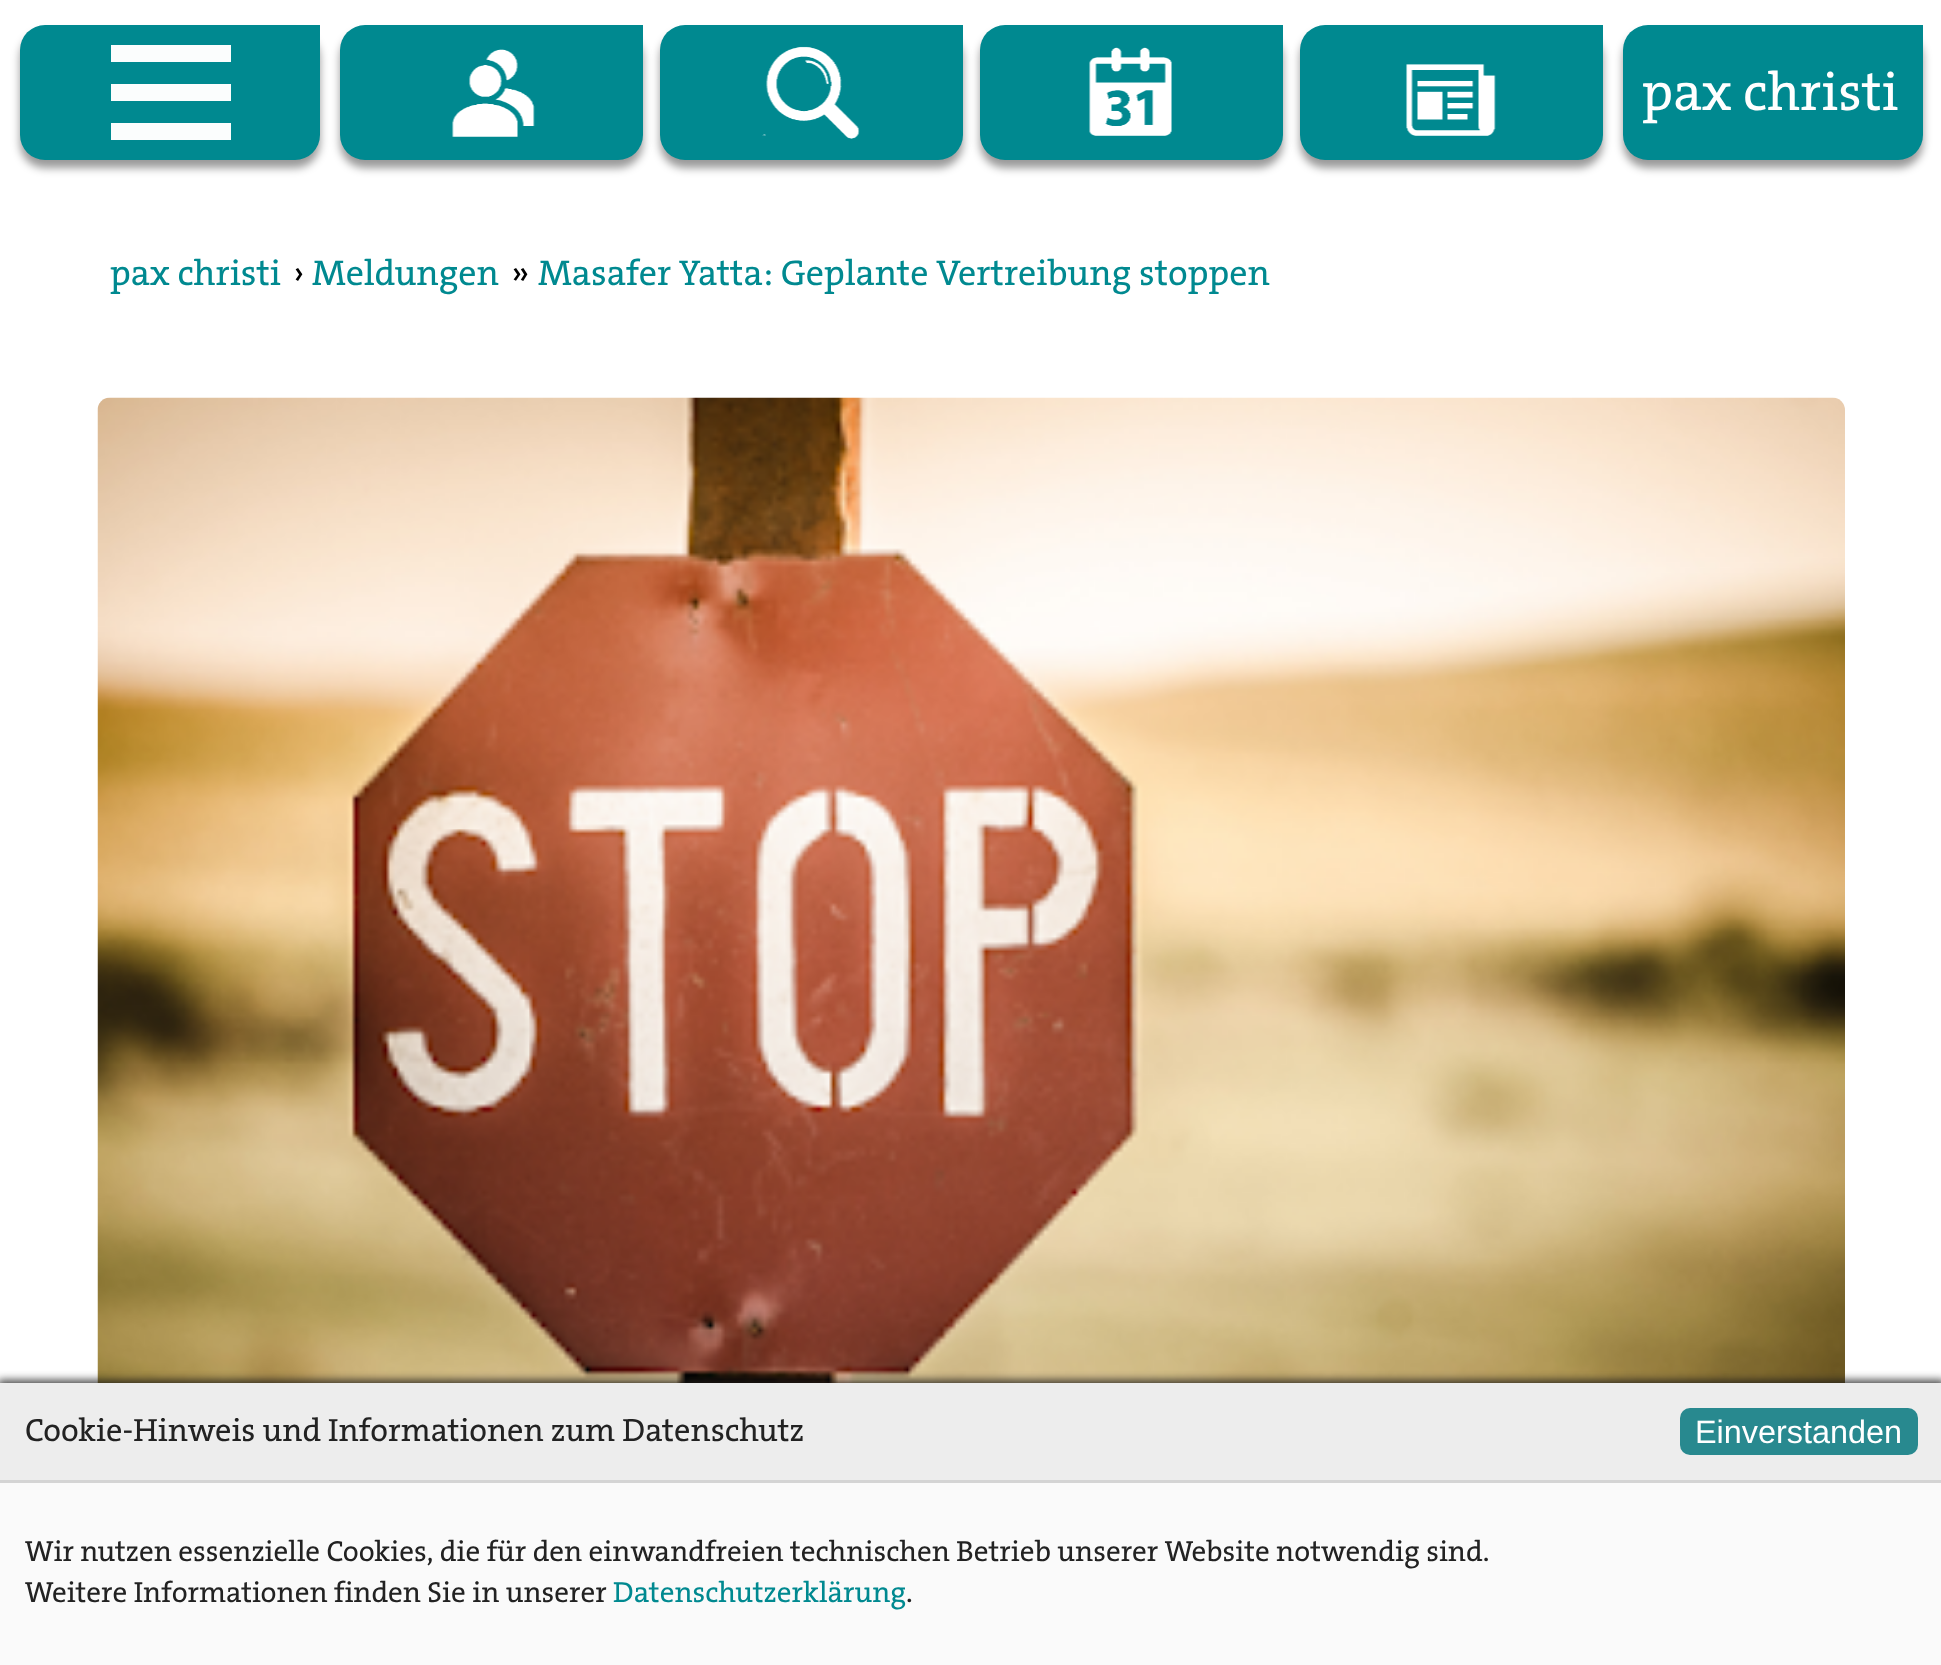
(async () => {
  const canvas = document.querySelector("canvas");
  canvas.width = 1941;
  canvas.height = 1665;
  const ctx = canvas.getContext("2d");
  ctx.miterLimit = 4;
  ctx.fontKerning = "normal";
  async function loadImage(src) {
    const img = new Image();
    img.src = src;
    await img.decode();
    return img;
  }

  ctx.fillStyle = "#ffffff";
  ctx.fillRect(0, 0, 1941, 1665);
  ctx.fillStyle = "rgba(0, 0, 0, 0.4)";
  ctx.filter = "blur(4px)";
  ctx.beginPath();
  ctx.roundRect(20, 33, 300, 135, 25);
  ctx.fill();
  ctx.filter = "none";
  ctx.fillStyle = "#008990";
  ctx.beginPath();
  ctx.roundRect(20, 25, 300, 135, [25, 0, 25, 25]);
  ctx.fill();
  for (const [x, y, w, h, color] of [
    [111, 84, 120, 17, "#fbfdfd"],
    [111, 123, 120, 17, "#fbfdfd"],
    [111, 45, 120, 17, "#fbfdfd"],
  ]) {
    ctx.fillStyle = color;
    ctx.fillRect(x, y, w, h);
  }
  ctx.fillStyle = "rgba(0, 0, 0, 0.4)";
  ctx.filter = "blur(4px)";
  ctx.beginPath();
  ctx.roundRect(340, 33, 303, 135, 25);
  ctx.fill();
  ctx.filter = "none";
  ctx.fillStyle = "#008990";
  ctx.beginPath();
  ctx.roundRect(340, 25, 303, 135, [25, 0, 25, 25]);
  ctx.fill();
  ctx.drawImage(await loadImage("img/1.png"), 452, 49, 83, 88);
  ctx.fillStyle = "rgba(0, 0, 0, 0.4)";
  ctx.filter = "blur(4px)";
  ctx.beginPath();
  ctx.roundRect(660, 33, 303, 135, 25);
  ctx.fill();
  ctx.filter = "none";
  ctx.fillStyle = "#008990";
  ctx.beginPath();
  ctx.roundRect(660, 25, 303, 135, [25, 0, 25, 25]);
  ctx.fill();
  ctx.drawImage(await loadImage("img/2.png"), 762, 46, 98, 93);
  ctx.fillStyle = "rgba(0, 0, 0, 0.4)";
  ctx.filter = "blur(4px)";
  ctx.beginPath();
  ctx.roundRect(980, 33, 303, 135, 25);
  ctx.fill();
  ctx.filter = "none";
  ctx.fillStyle = "#008990";
  ctx.beginPath();
  ctx.roundRect(980, 25, 303, 135, [25, 0, 25, 25]);
  ctx.fill();
  ctx.drawImage(await loadImage("img/3.png"), 1089, 47, 83, 89);
  ctx.fillStyle = "rgba(0, 0, 0, 0.4)";
  ctx.filter = "blur(4px)";
  ctx.beginPath();
  ctx.roundRect(1300, 33, 303, 135, 25);
  ctx.fill();
  ctx.filter = "none";
  ctx.fillStyle = "#008990";
  ctx.beginPath();
  ctx.roundRect(1300, 25, 303, 135, [25, 0, 25, 25]);
  ctx.fill();
  ctx.drawImage(await loadImage("img/4.png"), 1406, 64, 90, 72);
  ctx.fillStyle = "rgba(0, 0, 0, 0.4)";
  ctx.filter = "blur(4px)";
  ctx.beginPath();
  ctx.roundRect(1623, 33, 300, 135, 25);
  ctx.fill();
  ctx.filter = "none";
  ctx.fillStyle = "#008990";
  ctx.beginPath();
  ctx.roundRect(1623, 25, 300, 135, [25, 0, 25, 25]);
  ctx.fill();
  ctx.drawImage(await loadImage("img/5.png"), 97, 397, 1748, 986);
  ctx.fillStyle = "rgba(25, 25, 25, 0.8)";
  ctx.filter = "blur(4px)";
  ctx.beginPath();
  ctx.rect(-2, 1380, 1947, 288);
  ctx.fill();
  ctx.filter = "none";
  for (const [x, y, w, h, color] of [
    [0, 1483, 1941, 182, "#fafafa"],
    [0, 1383, 1941, 97, "#ededed"],
    [0, 1480, 1941, 3, "#d4d4d4"],
  ]) {
    ctx.fillStyle = color;
    ctx.fillRect(x, y, w, h);
  }
  ctx.fillStyle = "#28898f";
  ctx.beginPath();
  ctx.roundRect(1680, 1408, 238, 47, 10);
  ctx.fill();
  ctx.save();
  ctx.beginPath();
  ctx.rect(1643, 55, 255, 75);
  ctx.clip();
  ctx.font = "500 54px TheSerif";
  ctx.fillStyle = "#ffffff";
  ctx.fillText("pax christi", 1642, 110);
  ctx.restore();
  ctx.font = "500 36px TheSerif";
  ctx.fillStyle = "#008990";
  ctx.fillText("pax christi", 110, 285);
  ctx.fillStyle = "#000000";
  ctx.fillText("›", 293, 285);
  ctx.fillStyle = "#008990";
  ctx.fillText("Meldungen", 312, 285);
  ctx.fillStyle = "#000000";
  ctx.fillText("»", 511, 285);
  ctx.fillStyle = "#008990";
  ctx.fillText("Masafer Yatta: Geplante Vertreibung stoppen", 538, 285);
  ctx.font = "500 32.4px TheSerif";
  ctx.fillStyle = "#222222";
  ctx.fillText("Cookie-Hinweis und Informationen zum Datenschutz", 25, 1441);
  ctx.font = "32.4px Liberation Sans";
  ctx.fillStyle = "#ffffff";
  ctx.fillText("Einverstanden", 1695, 1443);
  ctx.font = "500 29.15px TheSerif";
  ctx.fillStyle = "#222222";
  ctx.fillText("Wir nutzen essenzielle Cookies, die für den einwandfreien technischen Betrieb unserer Website notwendig sind.", 25, 1561);
  ctx.fillText("Weitere Informationen finden Sie in unserer", 25, 1602);
  ctx.fillStyle = "#008990";
  ctx.fillText("Datenschutzerklärung", 613, 1602);
  ctx.fillStyle = "#222222";
  ctx.fillText(".", 906, 1602);
})();
